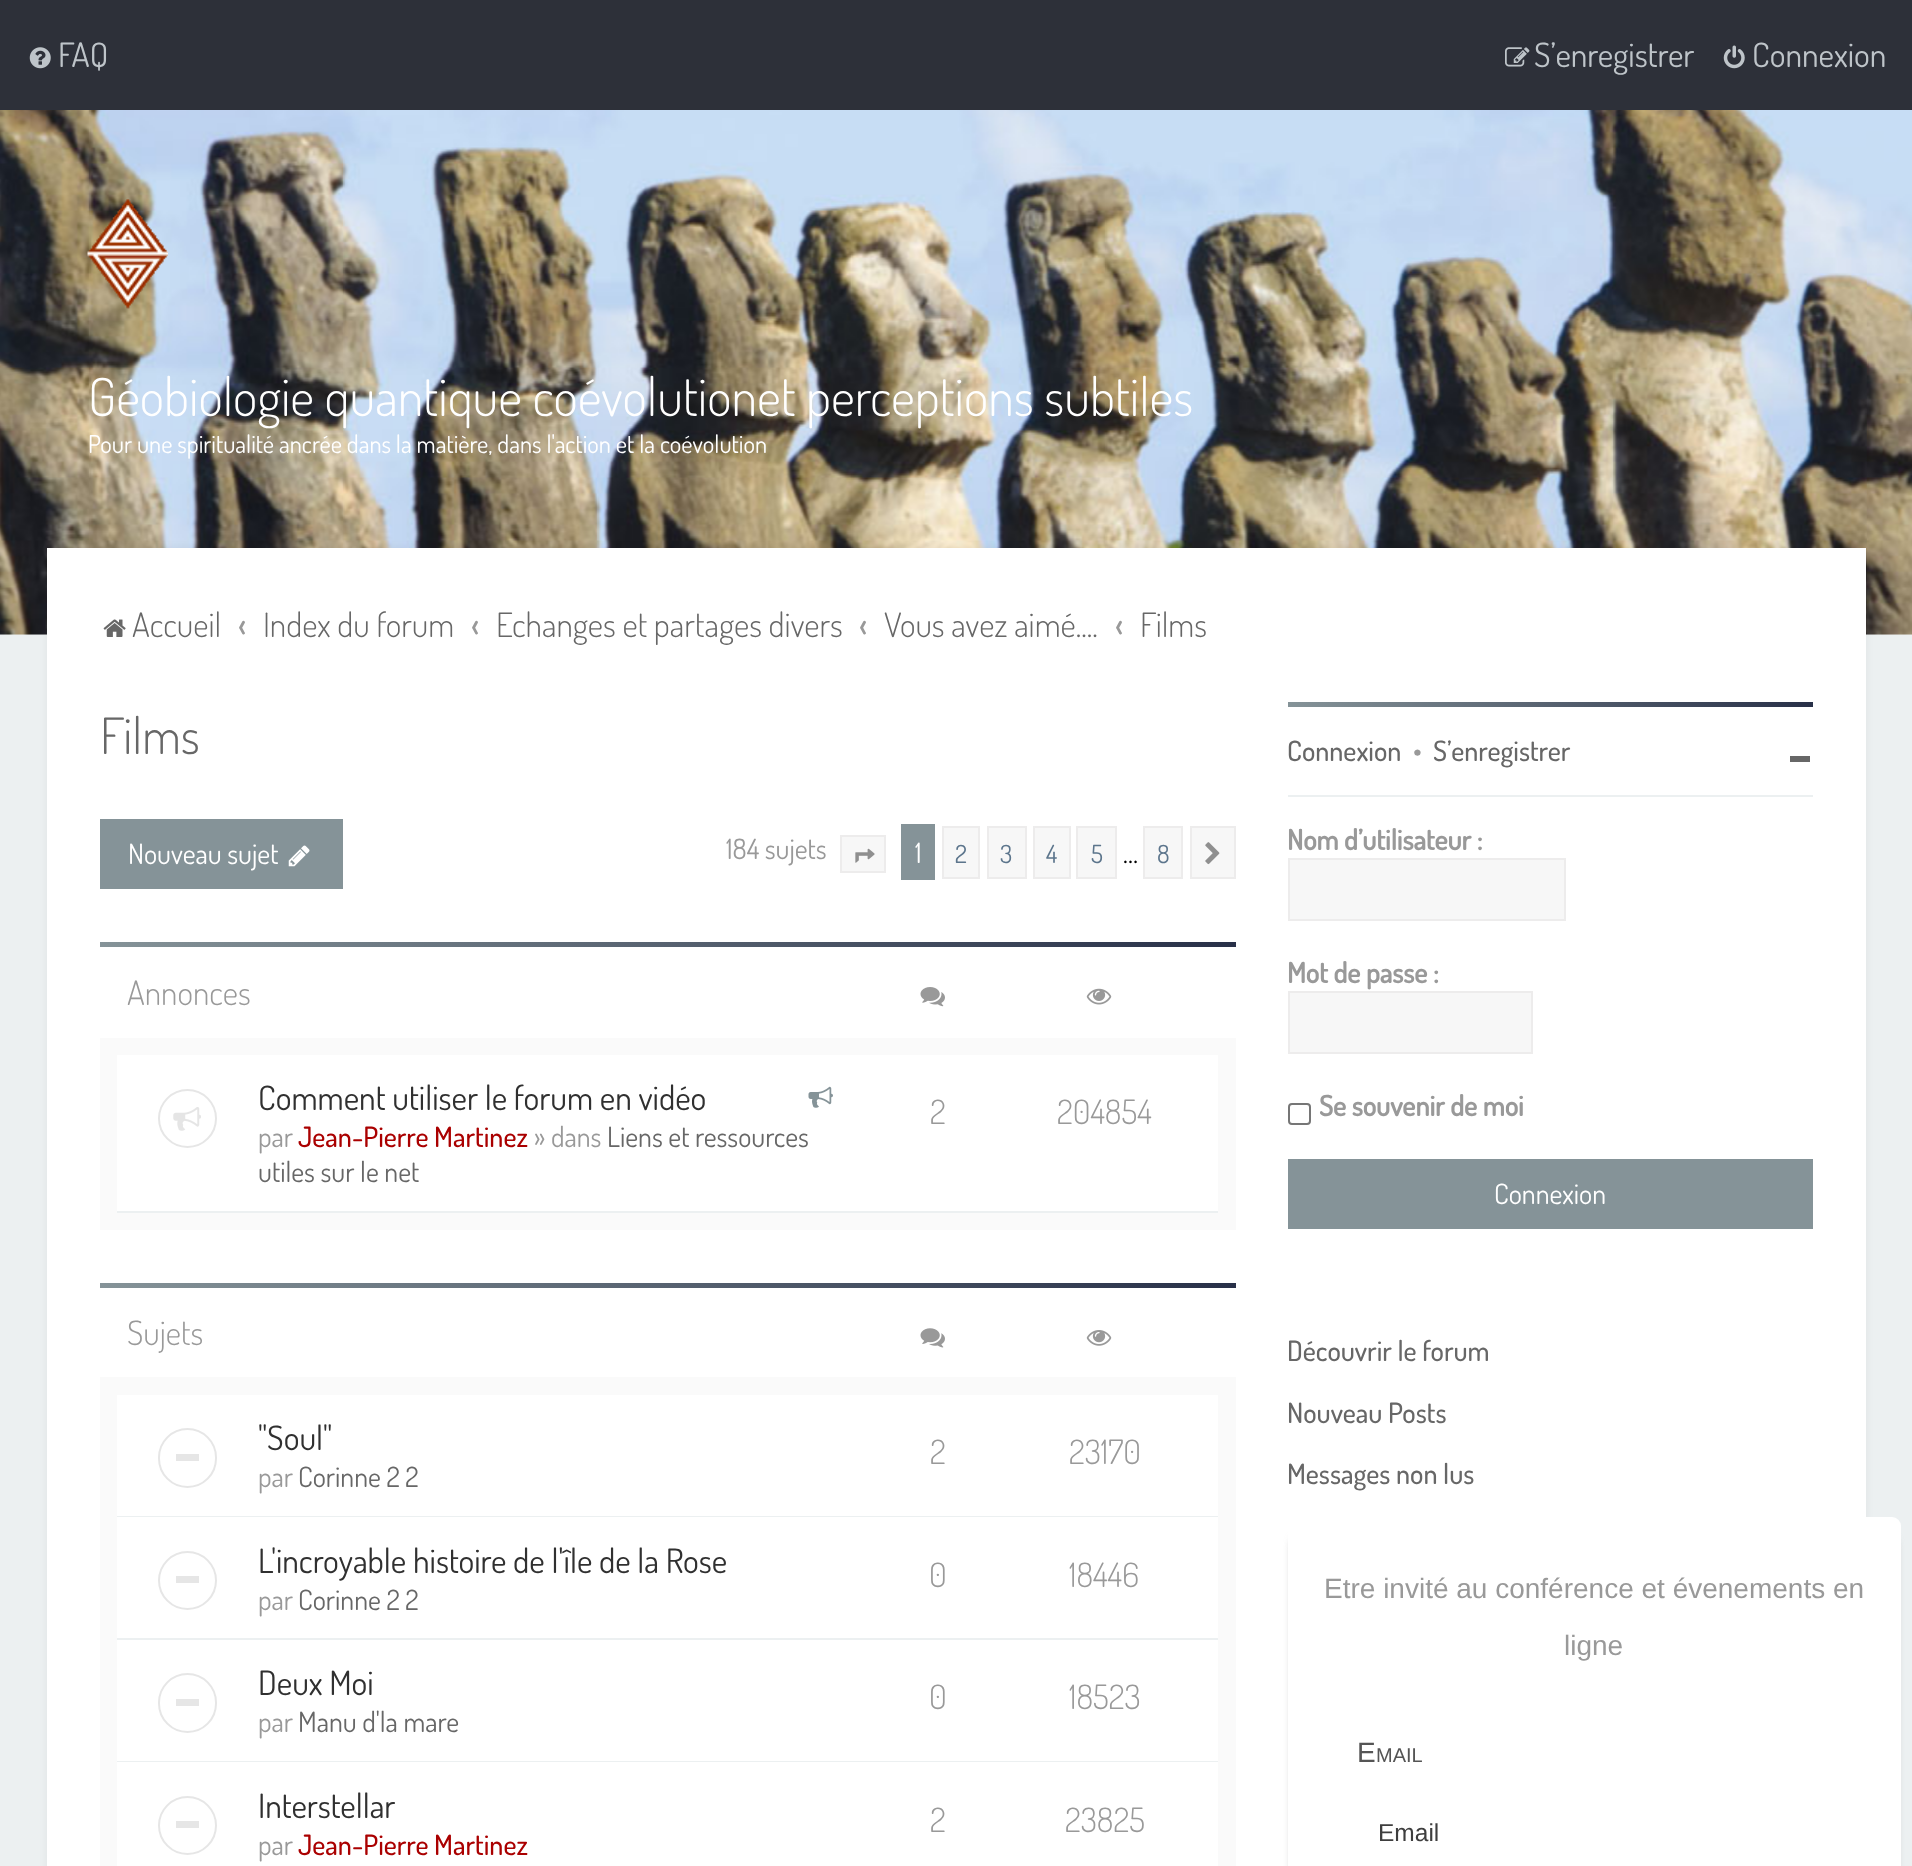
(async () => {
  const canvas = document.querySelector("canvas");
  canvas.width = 1912;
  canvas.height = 1866;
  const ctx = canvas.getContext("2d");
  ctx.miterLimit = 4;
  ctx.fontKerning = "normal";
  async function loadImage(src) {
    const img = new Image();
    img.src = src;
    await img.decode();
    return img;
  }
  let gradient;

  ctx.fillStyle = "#ecf0f1";
  ctx.fillRect(0, 0, 1912, 1866);
  ctx.fillStyle = "#2d3039";
  ctx.fillRect(0, 0, 1912, 110);
  ctx.drawImage(await loadImage("img/1.png"), 29, 47, 22, 22);
  ctx.drawImage(await loadImage("img/2.png"), 1505, 47, 25, 20);
  ctx.drawImage(await loadImage("img/3.png"), 1723, 45, 22, 24);
  ctx.drawImage(await loadImage("img/15.png"), 0, 110, 1912, 525);
  ctx.drawImage(await loadImage("img/4.png"), 87, 199, 81, 110);
  ctx.fillStyle = "rgba(0, 0, 0, 0.05)";
  ctx.filter = "blur(4.5px)";
  ctx.beginPath();
  ctx.rect(47, 548, 1819, 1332);
  ctx.fill();
  ctx.filter = "none";
  ctx.fillStyle = "#ffffff";
  ctx.fillRect(47, 548, 1819, 1318);
  ctx.drawImage(await loadImage("img/5.png"), 103, 619, 23, 18);
  ctx.fillStyle = "#859398";
  ctx.fillRect(100, 819, 243, 70);
  ctx.drawImage(await loadImage("img/6.png"), 288, 845, 22, 22);
  ctx.fillStyle = "#f7f7f7";
  ctx.beginPath();
  ctx.rect(841, 836, 44, 36);
  ctx.fill();
  ctx.strokeStyle = "#edecec";
  ctx.lineWidth = 2;
  ctx.stroke();
  ctx.drawImage(await loadImage("img/7.png"), 855, 848, 20, 15);
  ctx.fillStyle = "#859398";
  ctx.fillRect(901, 824, 34, 56);
  ctx.fillStyle = "#f7f7f7";
  ctx.beginPath();
  ctx.rect(943, 827, 36, 51);
  ctx.fill();
  ctx.stroke();
  ctx.beginPath();
  ctx.rect(988, 827, 38, 51);
  ctx.fill();
  ctx.stroke();
  ctx.beginPath();
  ctx.rect(1034, 827, 36, 51);
  ctx.fill();
  ctx.stroke();
  ctx.beginPath();
  ctx.rect(1077, 827, 39, 51);
  ctx.fill();
  ctx.stroke();
  ctx.beginPath();
  ctx.rect(1144, 827, 38, 51);
  ctx.fill();
  ctx.stroke();
  ctx.beginPath();
  ctx.rect(1191, 827, 44, 51);
  ctx.fill();
  ctx.stroke();
  ctx.drawImage(await loadImage("img/8.png"), 1205, 842, 15, 23);
  ctx.fillStyle = "#fafafa";
  ctx.fillRect(100, 1038, 1136, 192);
  gradient = ctx.createLinearGradient(100, 944, 1236, 944);
  gradient.addColorStop(0, "#859398");
  gradient.addColorStop(1, "#283048");
  ctx.fillStyle = gradient;
  ctx.fillRect(100, 942, 1136, 5);
  ctx.drawImage(await loadImage("img/9.png"), 920, 987, 25, 20);
  ctx.drawImage(await loadImage("img/10.png"), 1086, 988, 26, 17);
  ctx.fillStyle = "#ffffff";
  ctx.fillRect(117, 1055, 1101, 156);
  ctx.fillStyle = "#ecf0f1";
  ctx.fillRect(117, 1211, 1101, 2);
  ctx.beginPath();
  ctx.arc(187.5, 1118.5, 28.5, 0, Math.PI * 2);
  ctx.strokeStyle = "#e6e6e6";
  ctx.stroke();
  ctx.drawImage(await loadImage("img/11.png"), 173, 1107, 28, 24);
  ctx.drawImage(await loadImage("img/12.png"), 808, 1086, 25, 22);
  ctx.fillStyle = "#fafafa";
  ctx.fillRect(100, 1377, 1136, 489);
  gradient = ctx.createLinearGradient(100, 1285, 1236, 1285);
  gradient.addColorStop(0, "#859398");
  gradient.addColorStop(1, "#283048");
  ctx.fillStyle = gradient;
  ctx.fillRect(100, 1283, 1136, 5);
  ctx.drawImage(await loadImage("img/13.png"), 920, 1328, 25, 20);
  ctx.drawImage(await loadImage("img/14.png"), 1086, 1330, 26, 16);
  ctx.fillStyle = "#ffffff";
  ctx.fillRect(117, 1395, 1101, 121);
  ctx.fillStyle = "#ecf0f1";
  ctx.fillRect(117, 1516, 1101, 1);
  ctx.beginPath();
  ctx.roundRect(159, 1429, 57, 58, 28.5);
  ctx.stroke();
  for (const [x, y, w, h, color] of [
    [176, 1454, 23, 7, "#e6e6e6"],
    [117, 1517, 1101, 121, "#ffffff"],
    [117, 1638, 1101, 2, "#ecf0f1"],
  ]) {
    ctx.fillStyle = color;
    ctx.fillRect(x, y, w, h);
  }
  ctx.beginPath();
  ctx.arc(187.5, 1580.5, 28.5, 0, Math.PI * 2);
  ctx.stroke();
  for (const [x, y, w, h, color] of [
    [176, 1576, 23, 7, "#e6e6e6"],
    [117, 1640, 1101, 121, "#ffffff"],
    [117, 1761, 1101, 1, "#ecf0f1"],
  ]) {
    ctx.fillStyle = color;
    ctx.fillRect(x, y, w, h);
  }
  ctx.beginPath();
  ctx.roundRect(159, 1674, 57, 58, 28.5);
  ctx.stroke();
  ctx.fillStyle = "#e6e6e6";
  ctx.fillRect(176, 1699, 23, 7);
  ctx.fillStyle = "#ffffff";
  ctx.fillRect(117, 1762, 1101, 104);
  ctx.beginPath();
  ctx.arc(187.5, 1825.5, 28.5, 0, Math.PI * 2);
  ctx.stroke();
  ctx.fillStyle = "#e6e6e6";
  ctx.fillRect(176, 1821, 23, 7);
  gradient = ctx.createLinearGradient(1288, 704, 1813, 704);
  gradient.addColorStop(0, "#859398");
  gradient.addColorStop(1, "#283048");
  ctx.fillStyle = gradient;
  ctx.fillRect(1288, 702, 525, 5);
  ctx.fillStyle = "#676767";
  ctx.fillRect(1790, 756, 20, 6);
  ctx.fillStyle = "#ecf0f1";
  ctx.fillRect(1288, 795, 525, 2);
  ctx.fillStyle = "#f7f7f7";
  ctx.beginPath();
  ctx.rect(1289, 859, 276, 61);
  ctx.fill();
  ctx.strokeStyle = "#edecec";
  ctx.stroke();
  ctx.beginPath();
  ctx.rect(1289, 992, 243, 61);
  ctx.fill();
  ctx.stroke();
  ctx.beginPath();
  ctx.roundRect(1289, 1104, 21, 20, 3);
  ctx.strokeStyle = "#767676";
  ctx.stroke();
  ctx.fillStyle = "#859398";
  ctx.fillRect(1288, 1159, 525, 70);
  ctx.fillStyle = "#909090";
  ctx.filter = "blur(4.5px)";
  ctx.beginPath();
  ctx.roundRect(1293, 1540, 602, 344, 4);
  ctx.fill();
  ctx.filter = "none";
  ctx.fillStyle = "#ffffff";
  ctx.beginPath();
  ctx.roundRect(1288, 1517, 613, 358, 9);
  ctx.fill();
  ctx.font = "33.6px Dosis";
  ctx.fillStyle = "#bec4c9";
  for (const [text, x, y] of [
    ["FAQ", 58, 67],
    ["S’enregistrer", 1534, 67],
    ["Connexion", 1752, 67],
  ]) {
    ctx.fillText(text, x, y);
  }
  ctx.font = "300 52.5px Dosis";
  ctx.fillStyle = "#ffffff";
  ctx.fillText("Géobiologie quantique coévolutionet perceptions subtiles", 88, 416);
  ctx.font = "24.5px Dosis";
  ctx.fillText("Pour une spiritualité ancrée dans la matière, dans l'action et la coévolution", 88, 453);
  ctx.font = "300 33.6px Dosis";
  ctx.fillStyle = "#676767";
  ctx.fillText("Accueil", 132, 637);
  ctx.font = "500 33.6px Dosis";
  ctx.fillStyle = "#999999";
  ctx.fillText("‹", 238, 637);
  ctx.font = "300 33.6px Dosis";
  ctx.fillStyle = "#676767";
  ctx.fillText("Index du forum", 263, 637);
  ctx.font = "500 33.6px Dosis";
  ctx.fillStyle = "#999999";
  ctx.fillText("‹", 471, 637);
  ctx.font = "300 33.6px Dosis";
  ctx.fillStyle = "#676767";
  ctx.fillText("Echanges et partages divers", 496, 637);
  ctx.font = "500 33.6px Dosis";
  ctx.fillStyle = "#999999";
  ctx.fillText("‹", 859, 637);
  ctx.font = "300 33.6px Dosis";
  ctx.fillStyle = "#676767";
  ctx.fillText("Vous avez aimé....", 884, 637);
  ctx.font = "500 33.6px Dosis";
  ctx.fillStyle = "#999999";
  ctx.fillText("‹", 1115, 637);
  ctx.font = "300 33.6px Dosis";
  ctx.fillStyle = "#676767";
  ctx.fillText("Films", 1140, 637);
  ctx.font = "300 50px Dosis";
  ctx.fillText("Films", 100, 754);
  ctx.font = "28px Dosis";
  ctx.fillStyle = "#ffffff";
  ctx.fillText("Nouveau sujet", 128, 864);
  ctx.fillStyle = "#999999";
  ctx.fillText("184 sujets", 726, 859);
  ctx.fillStyle = "#ffffff";
  ctx.fillText("1", 915, 863);
  ctx.font = "25px Dosis";
  ctx.fillStyle = "#5c758c";
  for (const [text, x, y] of [
    ["2", 955, 863],
    ["3", 1000, 863],
    ["4", 1046, 863],
    ["5", 1091, 863],
  ]) {
    ctx.fillText(text, x, y);
  }
  ctx.font = "28px Dosis";
  ctx.fillStyle = "#000000";
  ctx.fillText("…", 1123, 863);
  ctx.font = "25px Dosis";
  ctx.fillStyle = "#5c758c";
  ctx.fillText("8", 1157, 863);
  ctx.font = "300 33.6px Dosis";
  ctx.fillStyle = "#999999";
  ctx.fillText("Annonces", 127, 1005);
  ctx.font = "33.6px Dosis";
  ctx.fillStyle = "#303030";
  ctx.fillText("Comment utiliser le forum en vidéo", 258, 1110);
  ctx.font = "28px Dosis";
  ctx.fillStyle = "#999999";
  ctx.fillText("par", 258, 1147);
  ctx.font = "500 28px Dosis";
  ctx.fillStyle = "#aa0000";
  ctx.fillText("Jean-Pierre Martinez", 298, 1147);
  ctx.font = "28px Dosis";
  ctx.fillStyle = "#999999";
  ctx.fillText("» dans", 534, 1147);
  ctx.fillStyle = "#676767";
  ctx.fillText("Liens et ressources", 607, 1147);
  ctx.fillText("utiles sur le net", 258, 1182);
  ctx.font = "300 33.6px Dosis";
  ctx.fillStyle = "#999999";
  for (const [text, x, y] of [
    ["2", 930, 1124],
    ["204854", 1057, 1124],
    ["Sujets", 127, 1345],
  ]) {
    ctx.fillText(text, x, y);
  }
  ctx.font = "33.6px Dosis";
  ctx.fillStyle = "#303030";
  ctx.fillText("\"Soul\"", 258, 1450);
  ctx.font = "28px Dosis";
  ctx.fillStyle = "#999999";
  ctx.fillText("par", 258, 1487);
  ctx.fillStyle = "#676767";
  ctx.fillText("Corinne 2 2", 298, 1487);
  ctx.font = "300 33.6px Dosis";
  ctx.fillStyle = "#999999";
  ctx.fillText("2", 930, 1464);
  ctx.fillText("23170", 1069, 1464);
  ctx.font = "33.6px Dosis";
  ctx.fillStyle = "#303030";
  ctx.fillText("L'incroyable histoire de l'île de la Rose", 258, 1573);
  ctx.font = "28px Dosis";
  ctx.fillStyle = "#999999";
  ctx.fillText("par", 258, 1610);
  ctx.fillStyle = "#676767";
  ctx.fillText("Corinne 2 2", 298, 1610);
  ctx.font = "300 33.6px Dosis";
  ctx.fillStyle = "#999999";
  ctx.fillText("0", 929, 1587);
  ctx.fillText("18446", 1069, 1587);
  ctx.font = "33.6px Dosis";
  ctx.fillStyle = "#303030";
  ctx.fillText("Deux Moi", 258, 1695);
  ctx.font = "28px Dosis";
  ctx.fillStyle = "#999999";
  ctx.fillText("par", 258, 1732);
  ctx.fillStyle = "#676767";
  ctx.fillText("Manu d'la mare", 298, 1732);
  ctx.font = "300 33.6px Dosis";
  ctx.fillStyle = "#999999";
  ctx.fillText("0", 929, 1709);
  ctx.fillText("18523", 1069, 1709);
  ctx.font = "33.6px Dosis";
  ctx.fillStyle = "#303030";
  ctx.fillText("Interstellar", 258, 1818);
  ctx.font = "28px Dosis";
  ctx.fillStyle = "#999999";
  ctx.fillText("par", 258, 1855);
  ctx.font = "500 28px Dosis";
  ctx.fillStyle = "#aa0000";
  ctx.fillText("Jean-Pierre Martinez", 298, 1855);
  ctx.font = "300 33.6px Dosis";
  ctx.fillStyle = "#999999";
  ctx.fillText("2", 930, 1832);
  ctx.fillText("23825", 1065, 1832);
  ctx.font = "500 28px Dosis";
  ctx.fillStyle = "#676767";
  ctx.fillText("Connexion", 1287, 761);
  ctx.fillStyle = "#999999";
  ctx.fillText("•", 1413, 761);
  ctx.fillStyle = "#676767";
  ctx.fillText("S’enregistrer", 1433, 761);
  ctx.font = "bold 28px Dosis";
  ctx.fillStyle = "#999999";
  for (const [text, x, y] of [
    ["Nom d’utilisateur :", 1287, 850],
    ["Mot de passe :", 1287, 983],
    ["Se souvenir de moi", 1319, 1116],
  ]) {
    ctx.fillText(text, x, y);
  }
  ctx.font = "28px Dosis";
  ctx.fillStyle = "#ffffff";
  ctx.fillText("Connexion", 1494, 1204);
  ctx.font = "500 28px Dosis";
  ctx.fillStyle = "#676767";
  for (const [text, x, y] of [
    ["Découvrir le forum", 1287, 1361],
    ["Nouveau Posts", 1287, 1423],
    ["Messages non lus", 1287, 1484],
  ]) {
    ctx.fillText(text, x, y);
  }
  ctx.font = "28px Liberation Sans";
  ctx.fillStyle = "#999999";
  ctx.fillText("Etre invité au conférence et évenements en", 1324, 1598);
  ctx.fillText("ligne", 1564, 1655);
  ctx.fillStyle = "#555555";
  ctx.fillText("E", 1357, 1762);
  ctx.font = "20px Liberation Sans";
  ctx.fillText("MAIL", 1376, 1762);
  ctx.font = "24.5px Liberation Sans";
  ctx.fillStyle = "#3e3e3e";
  ctx.fillText("Email", 1378, 1841);
})();
